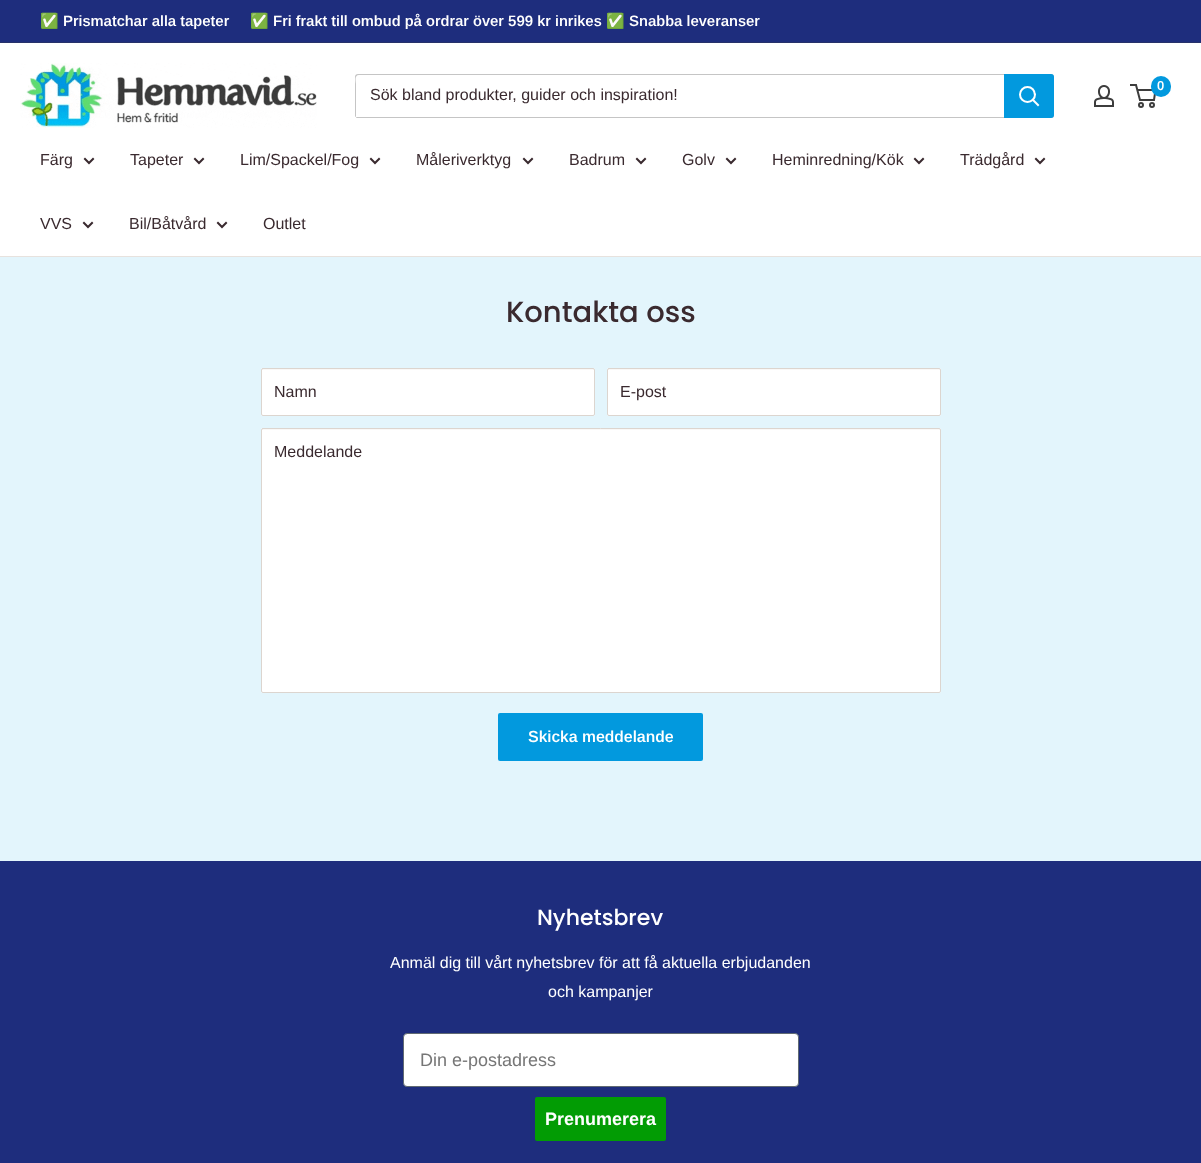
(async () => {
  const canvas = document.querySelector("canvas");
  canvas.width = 1201;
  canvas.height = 1163;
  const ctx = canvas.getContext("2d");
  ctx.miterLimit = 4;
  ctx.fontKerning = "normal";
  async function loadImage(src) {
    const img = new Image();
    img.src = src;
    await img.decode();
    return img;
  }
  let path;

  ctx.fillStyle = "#e3f5fc";
  ctx.fillRect(0, 0, 1201, 1163);
  for (const [x, y, w, h, color] of [
    [0, 0, 1201, 42, "#1e2d7d"],
    [0, 42, 1201, 1, "#27326a"],
    [0, 43, 1201, 213, "#ffffff"],
  ]) {
    ctx.fillStyle = color;
    ctx.fillRect(x, y, w, h);
  }
  ctx.drawImage(await loadImage("img/1.png"), 20, 63, 297, 65);
  ctx.drawImage(await loadImage("img/2.png"), 1094, 85, 20, 22);
  ctx.beginPath();
  ctx.arc(1141, 105, 2, 0, Math.PI * 2);
  ctx.strokeStyle = "#3d3d3d";
  ctx.lineWidth = 2;
  ctx.stroke();
  ctx.beginPath();
  ctx.arc(1152, 105, 2, 0, Math.PI * 2);
  ctx.stroke();
  path = new Path2D("M1137.5 90H1155.5L1154 100H1140L1136 85H1130");
  ctx.stroke(path);
  ctx.fillStyle = "#0299de";
  ctx.beginPath();
  ctx.roundRect(1151, 76, 20, 21, 10);
  ctx.fill();
  ctx.fillStyle = "#c5c5c5";
  path = new Path2D("M356 117C356 118 357 118 358 118H1051C1053 118 1054 117 1054 115V77C1054 76 1054 75 1053 75V108C1053 110 1055 117 1050 117Z");
  ctx.fill(path);
  path = new Path2D("M359 75H1053C1053 74 1052 74 1051 74H358C356 74 355 75 355 77V115C355 116 355 117 356 117V84C356 82 354 75 359 75Z");
  ctx.fill(path);
  ctx.fillStyle = "#0299de";
  ctx.beginPath();
  ctx.roundRect(1004, 74, 50, 44, [0, 3, 3, 0]);
  ctx.fill();
  path = new Path2D("M1038 105L1033 100");
  ctx.strokeStyle = "#ffffff";
  ctx.lineCap = "square";
  ctx.stroke(path);
  ctx.beginPath();
  ctx.arc(1027.5, 94.5, 7.5, 0, Math.PI * 2);
  ctx.stroke();
  ctx.fillStyle = "#e7e2de";
  ctx.fillRect(0, 256, 1201, 1);
  path = new Path2D("M93 159L89 163L85 159");
  ctx.strokeStyle = "#3a2a2f";
  ctx.stroke(path);
  path = new Path2D("M203 159L199 163L195 159");
  ctx.stroke(path);
  path = new Path2D("M379 159L375 163L371 159");
  ctx.stroke(path);
  path = new Path2D("M532 159L528 163L524 159");
  ctx.stroke(path);
  path = new Path2D("M645 159L641 163L637 159");
  ctx.stroke(path);
  path = new Path2D("M735 159L731 163L727 159");
  ctx.stroke(path);
  path = new Path2D("M923 159L919 163L915 159");
  ctx.stroke(path);
  path = new Path2D("M1044 159L1040 163L1036 159");
  ctx.stroke(path);
  path = new Path2D("M92 223L88 227L84 223");
  ctx.stroke(path);
  path = new Path2D("M226 223L222 227L218 223");
  ctx.stroke(path);
  ctx.fillStyle = "#ffffff";
  ctx.beginPath();
  ctx.roundRect(261, 368, 334, 48, 2);
  ctx.fill();
  ctx.fillStyle = "#f9f8f7";
  path = new Path2D("M263 370H593C594 370 594 370 594 371V369H428H263L262 370V371C262 370 262 370 263 370Z");
  ctx.fill(path);
  ctx.beginPath();
  ctx.roundRect(261.5, 368.5, 333, 47, 1.5);
  ctx.strokeStyle = "#dcd5cf";
  ctx.lineWidth = 1;
  ctx.stroke();
  ctx.fillStyle = "#ffffff";
  ctx.beginPath();
  ctx.roundRect(607, 368, 334, 48, 2);
  ctx.fill();
  ctx.fillStyle = "#f9f8f7";
  path = new Path2D("M609 370H939C940 370 940 370 940 371V370L939 369H608V371C608 370 608 370 609 370Z");
  ctx.fill(path);
  ctx.beginPath();
  ctx.roundRect(607.5, 368.5, 333, 47, 1.5);
  ctx.stroke();
  ctx.fillStyle = "#ffffff";
  ctx.beginPath();
  ctx.roundRect(261, 428, 680, 265, 2);
  ctx.fill();
  ctx.fillStyle = "#f9f8f7";
  path = new Path2D("M263 430H939C940 430 940 430 940 431C940 430 940 429 939 429H263C262 429 262 430 262 431C262 430 262 430 263 430Z");
  ctx.fill(path);
  ctx.beginPath();
  ctx.roundRect(261.5, 428.5, 679, 264, 1.5);
  ctx.stroke();
  ctx.fillStyle = "#0299de";
  ctx.beginPath();
  ctx.roundRect(498, 713, 205, 48, 2);
  ctx.fill();
  ctx.fillStyle = "#1e2d7d";
  ctx.fillRect(0, 861, 1201, 302);
  ctx.fillStyle = "#ffffff";
  ctx.beginPath();
  ctx.roundRect(403.5, 1033.5, 395, 53, 3.5);
  ctx.fill();
  ctx.strokeStyle = "#606a72";
  ctx.stroke();
  ctx.fillStyle = "#029c04";
  ctx.beginPath();
  ctx.roundRect(535, 1097, 131, 44, 2);
  ctx.fill();
  ctx.font = "bold 15px Noto Color Emoji";
  ctx.fillStyle = "#ffffff";
  ctx.fillText("✅", 40, 26);
  ctx.font = "600 15px Arimo";
  ctx.fillText("Prismatchar alla tapeter", 63, 26);
  ctx.font = "bold 15px Noto Color Emoji";
  ctx.fillText("✅", 250, 26);
  ctx.font = "600 15px Arimo";
  ctx.fillText("Fri frakt till ombud på ordrar över 599 kr inrikes", 273, 26);
  ctx.font = "bold 15px Noto Color Emoji";
  ctx.fillText("✅", 606, 26);
  ctx.font = "600 15px Arimo";
  ctx.fillText("Snabba leveranser", 629, 26);
  ctx.font = "600 13px Arimo";
  ctx.fillText("0", 1157, 90);
  ctx.font = "16px Arimo";
  ctx.fillStyle = "#3a2a2f";
  for (const [text, x, y] of [
    ["Sök bland produkter, guider och inspiration!", 370, 100],
    ["Färg", 40, 165],
    ["Tapeter", 130, 165],
    ["Lim/Spackel/Fog", 240, 165],
    ["Måleriverktyg", 416, 165],
    ["Badrum", 569, 165],
    ["Golv", 682, 165],
    ["Heminredning/Kök", 772, 165],
    ["Trädgård", 960, 165],
    ["VVS", 40, 229],
    ["Bil/Båtvård", 129, 229],
    ["Outlet", 263, 229],
  ]) {
    ctx.fillText(text, x, y);
  }
  ctx.font = "500 29px Poppins";
  ctx.fillText("Kontakta oss", 506, 322);
  ctx.font = "16px Arimo";
  for (const [text, x, y] of [
    ["Namn", 274, 397],
    ["E-post", 620, 397],
    ["Meddelande", 274, 457],
  ]) {
    ctx.fillText(text, x, y);
  }
  ctx.font = "600 16px Arimo";
  ctx.fillStyle = "#ffffff";
  ctx.fillText("Skicka meddelande", 528, 742);
  ctx.font = "500 22px Poppins";
  ctx.fillText("Nyhetsbrev", 537, 925);
  ctx.font = "16px Arimo";
  ctx.fillText("Anmäl dig till vårt nyhetsbrev för att få aktuella erbjudanden", 390, 968);
  ctx.fillText("och kampanjer", 548, 997);
  ctx.font = "18px Liberation Sans";
  ctx.fillStyle = "#767676";
  ctx.fillText("Din e-postadress", 420, 1066);
  ctx.font = "bold 18px Liberation Sans";
  ctx.fillStyle = "#ffffff";
  ctx.fillText("Prenumerera", 545, 1125);
})();
